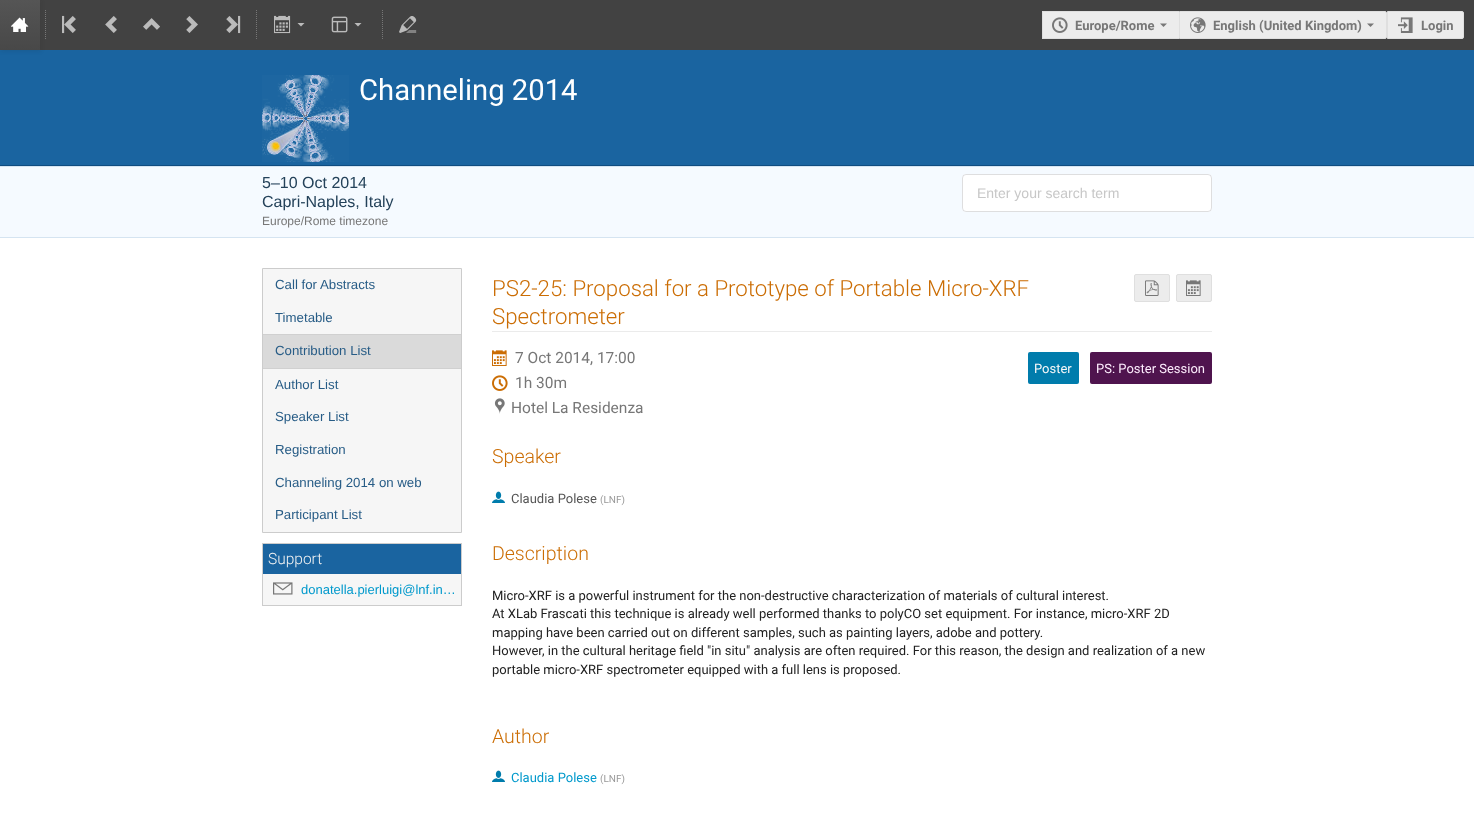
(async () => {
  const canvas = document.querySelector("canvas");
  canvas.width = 1474;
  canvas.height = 818;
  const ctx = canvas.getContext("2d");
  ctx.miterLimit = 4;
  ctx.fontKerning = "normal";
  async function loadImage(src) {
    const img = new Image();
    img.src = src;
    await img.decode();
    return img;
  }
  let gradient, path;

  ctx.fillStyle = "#ffffff";
  ctx.fillRect(0, 0, 1474, 818);
  ctx.fillStyle = "#424242";
  ctx.fillRect(40, 0, 1434, 50);
  ctx.fillStyle = "#1a64a0";
  ctx.fillRect(0, 50, 1474, 115);
  ctx.fillStyle = "rgba(20, 20, 20, 0.1)";
  ctx.filter = "blur(2px)";
  ctx.beginPath();
  ctx.rect(1, 1, 40, 50);
  ctx.fill();
  ctx.filter = "none";
  gradient = ctx.createLinearGradient(20, 0, 20, 50);
  gradient.addColorStop(0, "#555555");
  gradient.addColorStop(1, "#484848");
  ctx.fillStyle = gradient;
  ctx.fillRect(0, 0, 40, 50);
  ctx.drawImage(await loadImage("img/1.png"), 11, 17, 18, 15);
  path = new Path2D("M45.5 10V40");
  ctx.strokeStyle = "#777777";
  ctx.setLineDash([1, 1]);
  ctx.stroke(path);
  ctx.drawImage(await loadImage("img/2.png"), 62, 15, 14, 19);
  ctx.drawImage(await loadImage("img/3.png"), 105, 16, 12, 17);
  ctx.drawImage(await loadImage("img/4.png"), 143, 18, 17, 12);
  ctx.drawImage(await loadImage("img/5.png"), 186, 16, 12, 17);
  ctx.drawImage(await loadImage("img/6.png"), 226, 15, 15, 19);
  path = new Path2D("M256.5 10V40");
  ctx.stroke(path);
  ctx.drawImage(await loadImage("img/7.png"), 274, 15, 17, 19);
  ctx.fillStyle = "#bbbbbb";
  path = new Path2D("M297.5 23L301 26.5L304.5 23Z");
  ctx.fill(path);
  ctx.drawImage(await loadImage("img/8.png"), 331, 16, 17, 17);
  path = new Path2D("M354.5 23L358 26.5L361.5 23Z");
  ctx.fill(path);
  path = new Path2D("M382.5 10V40");
  ctx.stroke(path);
  ctx.drawImage(await loadImage("img/9.png"), 399, 16, 18, 17);
  for (const [x, y, w, h, color] of [
    [1043, 12, 136, 26, "#ececec"],
    [1042, 11, 137, 1, "#dfdfdf"],
    [1042, 38, 137, 1, "#dfdfdf"],
    [1042, 11, 1, 28, "#dfdfdf"],
  ]) {
    ctx.fillStyle = color;
    ctx.fillRect(x, y, w, h);
  }
  ctx.drawImage(await loadImage("img/10.png"), 1052, 17, 16, 16);
  ctx.fillStyle = "#777777";
  path = new Path2D("M1160 23.5L1163.5 27L1167 23.5Z");
  ctx.fill(path);
  ctx.fillStyle = "#ececec";
  ctx.beginPath();
  ctx.roundRect(1179.5, 11.5, 207, 27, [0, 1.5, 1.5, 0]);
  ctx.fill();
  ctx.strokeStyle = "#dfdfdf";
  ctx.setLineDash([]);
  ctx.stroke();
  ctx.drawImage(await loadImage("img/11.png"), 1190, 17, 16, 16);
  ctx.fillStyle = "#777777";
  path = new Path2D("M1367 23.5L1370.5 27L1374 23.5Z");
  ctx.fill(path);
  ctx.fillStyle = "#ececec";
  ctx.beginPath();
  ctx.roundRect(1387.5, 11.5, 76, 27, [0, 1.5, 1.5, 0]);
  ctx.fill();
  ctx.stroke();
  ctx.drawImage(await loadImage("img/12.png"), 1398, 17, 15, 16);
  ctx.fillStyle = "#0f4c80";
  ctx.fillRect(0, 165, 1474, 1);
  ctx.drawImage(await loadImage("img/13.png"), 262, 75, 87, 87);
  for (const [x, y, w, h, color] of [
    [0, 167, 1474, 70, "#f5faff"],
    [0, 166, 1474, 1, "#d5e4f1"],
    [0, 237, 1474, 1, "#d5e4f1"],
  ]) {
    ctx.fillStyle = color;
    ctx.fillRect(x, y, w, h);
  }
  ctx.fillStyle = "#ffffff";
  ctx.beginPath();
  ctx.roundRect(962, 174, 250, 38, 4);
  ctx.fill();
  ctx.beginPath();
  ctx.roundRect(962.5, 174.5, 249, 37, 3.5);
  ctx.strokeStyle = "rgba(34, 36, 38, 0.15)";
  ctx.stroke();
  ctx.fillStyle = "#f6f6f6";
  ctx.beginPath();
  ctx.rect(262.5, 268.5, 199, 264);
  ctx.fill();
  ctx.strokeStyle = "#cccccc";
  ctx.stroke();
  for (const [x, y, w, h, color] of [
    [263, 335, 198, 33, "#dadada"],
    [263, 334, 198, 1, "#d0d0d0"],
    [263, 368, 198, 1, "#d0d0d0"],
    [263, 574, 198, 31, "#f6f6f6"],
  ]) {
    ctx.fillStyle = color;
    ctx.fillRect(x, y, w, h);
  }
  ctx.strokeRect(262.5, 543.5, 199, 62);
  ctx.fillStyle = "#1a64a0";
  ctx.fillRect(263, 544, 198, 30);
  ctx.drawImage(await loadImage("img/14.png"), 273, 582, 20, 13);
  ctx.fillStyle = "#ebebeb";
  ctx.fillRect(492, 331, 720, 1);
  ctx.fillStyle = "#ececec";
  ctx.beginPath();
  ctx.roundRect(1134.5, 274.5, 35, 27, 1.5);
  ctx.fill();
  ctx.strokeStyle = "#dfdfdf";
  ctx.stroke();
  ctx.drawImage(await loadImage("img/15.png"), 1145, 280, 14, 16);
  ctx.beginPath();
  ctx.roundRect(1176.5, 274.5, 35, 27, 1.5);
  ctx.fill();
  ctx.stroke();
  ctx.drawImage(await loadImage("img/16.png"), 1186, 280, 15, 16);
  ctx.drawImage(await loadImage("img/17.png"), 492, 350, 15, 16);
  ctx.drawImage(await loadImage("img/18.png"), 492, 375, 16, 16);
  ctx.drawImage(await loadImage("img/19.png"), 494, 398, 11, 16);
  ctx.fillStyle = "#007cac";
  ctx.beginPath();
  ctx.roundRect(1028, 352, 51, 32, 2);
  ctx.fill();
  ctx.fillStyle = "#4f144e";
  ctx.beginPath();
  ctx.roundRect(1090, 352, 122, 32, 2);
  ctx.fill();
  ctx.drawImage(await loadImage("img/20.png"), 492, 491, 13, 12);
  ctx.drawImage(await loadImage("img/20.png"), 492, 770, 13, 12);
  ctx.font = "bold 13px Roboto";
  ctx.fillStyle = "#777777";
  for (const [text, x, y] of [
    ["Europe/Rome", 1075, 30],
    ["English (United Kingdom)", 1213, 30],
    ["Login", 1421, 30],
  ]) {
    ctx.fillText(text, x, y);
  }
  ctx.font = "29.25px Roboto";
  ctx.fillStyle = "#ffffff";
  ctx.fillText("Channeling 2014", 359, 100);
  ctx.font = "16px Liberation Sans";
  ctx.fillStyle = "#24425a";
  ctx.fillText("5–10 Oct 2014", 262, 188);
  ctx.fillText("Capri-Naples, Italy", 262, 207);
  ctx.font = "12px Liberation Sans";
  ctx.fillStyle = "#777777";
  ctx.fillText("Europe/Rome timezone", 262, 225);
  ctx.font = "14px 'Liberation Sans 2'";
  ctx.fillStyle = "#c7c7c7";
  ctx.fillText("Enter your search term", 977, 198);
  ctx.font = "13.25px 'Liberation Sans 2'";
  ctx.fillStyle = "#275c86";
  for (const [text, x, y] of [
    ["Call for Abstracts", 275, 289],
    ["Timetable", 275, 322],
    ["Contribution List", 275, 355],
    ["Author List", 275, 389],
    ["Speaker List", 275, 421],
    ["Registration", 275, 454],
    ["Channeling 2014 on web", 275, 487],
    ["Participant List", 275, 519],
  ]) {
    ctx.fillText(text, x, y);
  }
  ctx.font = "300 15.5px Roboto";
  ctx.fillStyle = "#f3f3f3";
  ctx.fillText("Support", 268, 564);
  ctx.font = "13px Liberation Sans";
  ctx.fillStyle = "#0099cc";
  ctx.fillText("donatella.pierluigi@lnf.in…", 301, 594);
  ctx.font = "300 22.25px Roboto";
  ctx.fillStyle = "#cb6d04";
  ctx.fillText("PS2-25: Proposal for a Prototype of Portable Micro-XRF", 492, 296);
  ctx.fillText("Spectrometer", 492, 324);
  ctx.font = "15.5px Roboto";
  ctx.fillStyle = "#777777";
  for (const [text, x, y] of [
    ["7 Oct 2014, 17:00", 515, 363],
    ["1h 30m", 515, 388],
    ["Hotel La Residenza", 511, 413],
  ]) {
    ctx.fillText(text, x, y);
  }
  ctx.font = "13px Roboto";
  ctx.fillStyle = "#f9f9f9";
  ctx.fillText("Poster", 1034, 373);
  ctx.fillStyle = "#ffefff";
  ctx.fillText("PS: Poster Session", 1096, 373);
  ctx.font = "300 19.5px Roboto";
  ctx.fillStyle = "#cb6d04";
  ctx.fillText("Speaker", 492, 463);
  ctx.font = "13px Roboto";
  ctx.fillStyle = "#555555";
  ctx.fillText("Claudia Polese", 511, 503);
  ctx.font = "10px Roboto";
  ctx.fillStyle = "#999999";
  ctx.fillText("(LNF)", 600, 503);
  ctx.font = "300 19.5px Roboto";
  ctx.fillStyle = "#cb6d04";
  ctx.fillText("Description", 492, 560);
  ctx.font = "13px Roboto";
  ctx.fillStyle = "#212121";
  for (const [text, x, y] of [
    ["Micro-XRF is a powerful instrument for the non-destructive characterization of materials of cultural interest.", 492, 600],
    ["At XLab Frascati this technique is already well performed thanks to polyCO set equipment. For instance, micro-XRF 2D", 492, 618],
    ["mapping have been carried out on different samples, such as painting layers, adobe and pottery.", 492, 637],
    ["However, in the cultural heritage field \"in situ\" analysis are often required. For this reason, the design and realization of a new", 492, 655],
    ["portable micro-XRF spectrometer equipped with a full lens is proposed.", 492, 674],
  ]) {
    ctx.fillText(text, x, y);
  }
  ctx.font = "300 19.5px Roboto";
  ctx.fillStyle = "#cb6d04";
  ctx.fillText("Author", 492, 743);
  ctx.font = "13px Roboto";
  ctx.fillStyle = "#0099cc";
  ctx.fillText("Claudia Polese", 511, 782);
  ctx.font = "10px Roboto";
  ctx.fillStyle = "#999999";
  ctx.fillText("(LNF)", 600, 782);
})();
